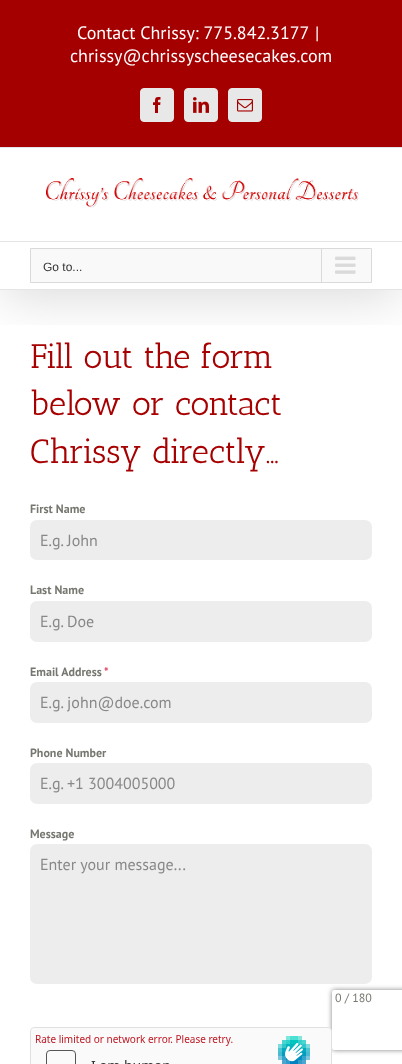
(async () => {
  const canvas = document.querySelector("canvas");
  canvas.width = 402;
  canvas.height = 1064;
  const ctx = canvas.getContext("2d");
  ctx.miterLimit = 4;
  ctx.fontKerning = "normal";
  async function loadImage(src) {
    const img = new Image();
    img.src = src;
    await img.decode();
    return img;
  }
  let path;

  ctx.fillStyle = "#ffffff";
  ctx.fillRect(0, 0, 402, 1064);
  ctx.save();
  ctx.beginPath();
  ctx.rect(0, 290, 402, 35);
  ctx.clip();
  ctx.fillStyle = "rgba(0, 0, 0, 0.14)";
  ctx.filter = "blur(25px)";
  ctx.beginPath();
  ctx.rect(2, 12, 398, 286);
  ctx.fill();
  ctx.filter = "none";
  ctx.restore();
  ctx.fillStyle = "#a50000";
  ctx.fillRect(0, 0, 402, 147);
  ctx.fillStyle = "#e5e5e5";
  ctx.fillRect(0, 147, 402, 1);
  ctx.fillStyle = "#e8e8e8";
  ctx.beginPath();
  ctx.roundRect(140.5, 88.5, 33, 33, 3.5);
  ctx.fill();
  ctx.strokeStyle = "#e8e8e8";
  ctx.stroke();
  ctx.drawImage(await loadImage("img/1.png"), 153, 97, 8, 16);
  ctx.beginPath();
  ctx.roundRect(184.5, 88.5, 33, 33, 3.5);
  ctx.fill();
  ctx.stroke();
  ctx.drawImage(await loadImage("img/2.png"), 193, 97, 16, 16);
  ctx.beginPath();
  ctx.roundRect(228.5, 88.5, 33, 33, 3.5);
  ctx.fill();
  ctx.stroke();
  ctx.drawImage(await loadImage("img/3.png"), 237, 99, 16, 13);
  ctx.fillStyle = "#e5e5e5";
  ctx.fillRect(0, 241, 402, 1);
  ctx.drawImage(await loadImage("img/4.png"), 46, 178, 313, 30);
  ctx.fillRect(0, 289, 402, 1);
  ctx.fillStyle = "#f9f9f9";
  ctx.beginPath();
  ctx.rect(30.5, 248.5, 341, 34);
  ctx.fill();
  ctx.strokeStyle = "#dadada";
  ctx.stroke();
  ctx.fillStyle = "#dadada";
  ctx.fillRect(321, 249, 1, 33);
  ctx.drawImage(await loadImage("img/5.png"), 335, 256, 21, 18);
  ctx.fillStyle = "#ededed";
  ctx.beginPath();
  ctx.roundRect(30, 520, 342, 40, 7);
  ctx.fill();
  ctx.beginPath();
  ctx.roundRect(30, 601, 342, 41, 7);
  ctx.fill();
  ctx.beginPath();
  ctx.roundRect(30, 682, 342, 41, 7);
  ctx.fill();
  ctx.beginPath();
  ctx.roundRect(30, 763, 342, 41, 7);
  ctx.fill();
  ctx.save();
  path = new Path2D("M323 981H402V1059H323ZM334 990H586C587 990 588 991 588 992V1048C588 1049 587 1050 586 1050H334C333 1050 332 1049 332 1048V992C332 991 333 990 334 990Z");
  ctx.clip(path, "evenodd");
  ctx.fillStyle = "#808080";
  ctx.filter = "blur(2.5px)";
  ctx.beginPath();
  ctx.roundRect(332, 990, 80, 60, 2);
  ctx.fill();
  ctx.filter = "none";
  ctx.restore();
  ctx.beginPath();
  ctx.roundRect(30, 844, 342, 140, 7);
  ctx.fill();
  ctx.drawImage(await loadImage("img/6.png"), 30, 1027, 302, 37);
  ctx.font = "18px PT Sans";
  ctx.fillStyle = "#ffffff";
  for (const [text, x, y] of [
    ["Contact Chrissy: 775.842.3177", 77, 39],
    ["|", 315, 39],
    ["chrissy@chrissyscheesecakes.com", 70, 62],
  ]) {
    ctx.fillText(text, x, y);
  }
  ctx.font = "12px Liberation Sans";
  ctx.fillStyle = "#333333";
  ctx.fillText("Go to...", 43, 271);
  ctx.font = "34px Antic Slab";
  ctx.fillStyle = "#a70000";
  for (const [text, x, y] of [
    ["Fill out the form", 30, 368],
    ["below or contact", 30, 415],
    ["Chrissy directly…", 30, 463],
  ]) {
    ctx.fillText(text, x, y);
  }
  ctx.font = "bold 12px PT Sans";
  ctx.fillStyle = "#777771";
  ctx.fillText("First Name", 30, 513);
  ctx.font = "16px PT Sans";
  ctx.fillStyle = "#888888";
  ctx.fillText("E.g. John", 40, 546);
  ctx.font = "bold 12px PT Sans";
  ctx.fillStyle = "#777771";
  ctx.fillText("Last Name", 30, 594);
  ctx.font = "16px PT Sans";
  ctx.fillStyle = "#888888";
  ctx.fillText("E.g. Doe", 40, 627);
  ctx.font = "bold 12px PT Sans";
  ctx.fillStyle = "#777771";
  ctx.fillText("Email Address", 30, 676);
  ctx.fillStyle = "#e04562";
  ctx.fillText("*", 104, 676);
  ctx.font = "16px PT Sans";
  ctx.fillStyle = "#888888";
  ctx.fillText("E.g. john@doe.com", 40, 708);
  ctx.font = "bold 12px PT Sans";
  ctx.fillStyle = "#777771";
  ctx.fillText("Phone Number", 30, 757);
  ctx.font = "16px PT Sans";
  ctx.fillStyle = "#888888";
  ctx.fillText("E.g. +1 3004005000", 40, 789);
  ctx.font = "bold 12px PT Sans";
  ctx.fillStyle = "#777771";
  ctx.fillText("Message", 30, 838);
  ctx.font = "16px PT Sans";
  ctx.fillStyle = "#888888";
  ctx.fillText("Enter your message...", 40, 870);
  ctx.font = "12px PT Sans";
  ctx.fillStyle = "#777771";
  ctx.fillText("0 / 180", 335, 1002);
})();
